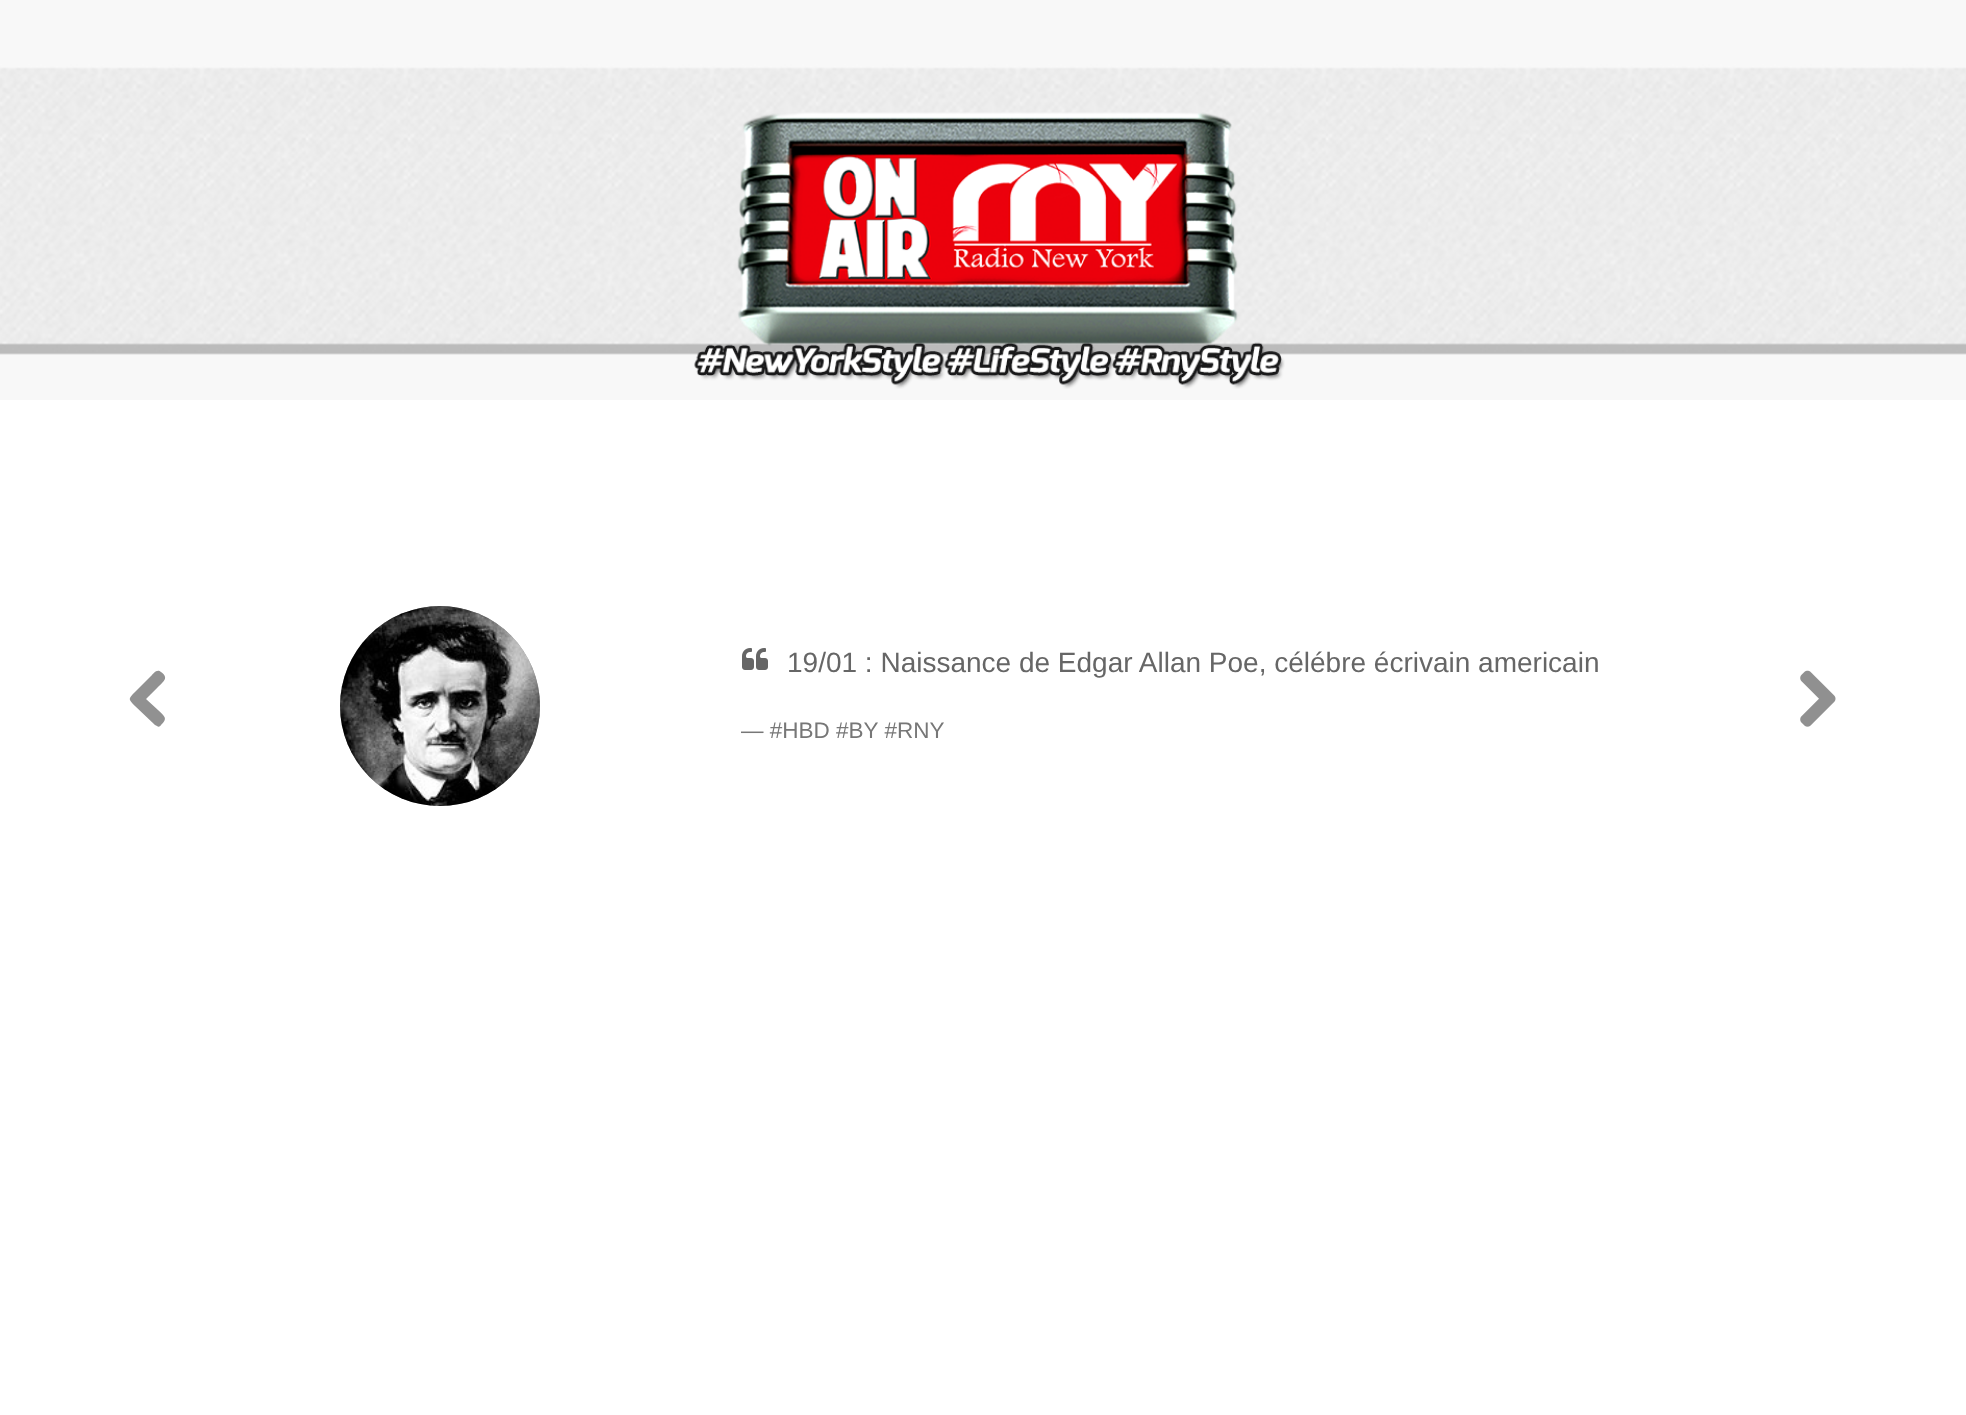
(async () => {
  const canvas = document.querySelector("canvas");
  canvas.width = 1966;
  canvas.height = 1415;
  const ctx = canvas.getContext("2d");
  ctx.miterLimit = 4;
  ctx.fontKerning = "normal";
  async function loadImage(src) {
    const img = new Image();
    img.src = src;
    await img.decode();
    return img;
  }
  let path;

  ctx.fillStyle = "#ffffff";
  ctx.fillRect(0, 0, 1966, 1415);
  ctx.drawImage(await loadImage("img/1.png"), 0, 0, 1966, 400);
  ctx.drawImage(await loadImage("img/2.png"), 694, 112, 591, 277);
  ctx.fillStyle = "#919191";
  path = new Path2D("M155 725L135 706C128 699 128 699 135 692L151 676C153 674 157 668 161 672C169 678 164 681 158 687L146 699L158 710C165 717 168 718 161 725C160 727 158 727 157 726Z");
  ctx.fill(path);
  ctx.fillStyle = "#999999";
  ctx.beginPath();
  ctx.arc(440, 706, 100, 0, Math.PI * 2);
  ctx.fill();
  ctx.drawImage(await loadImage("img/3.png"), 340, 606, 200, 200);
  ctx.drawImage(await loadImage("img/4.png"), 742, 648, 26, 22);
  ctx.drawImage(await loadImage("img/5.png"), 1800, 670, 36, 57);
  ctx.font = "28px Liberation Sans";
  ctx.fillStyle = "#666666";
  ctx.fillText("19/01 : Naissance de Edgar Allan Poe, célébre écrivain americain", 787, 672);
  ctx.font = "22.5px Liberation Sans";
  ctx.fillStyle = "#777777";
  ctx.fillText("— #HBD #BY #RNY", 741, 738);
})();
